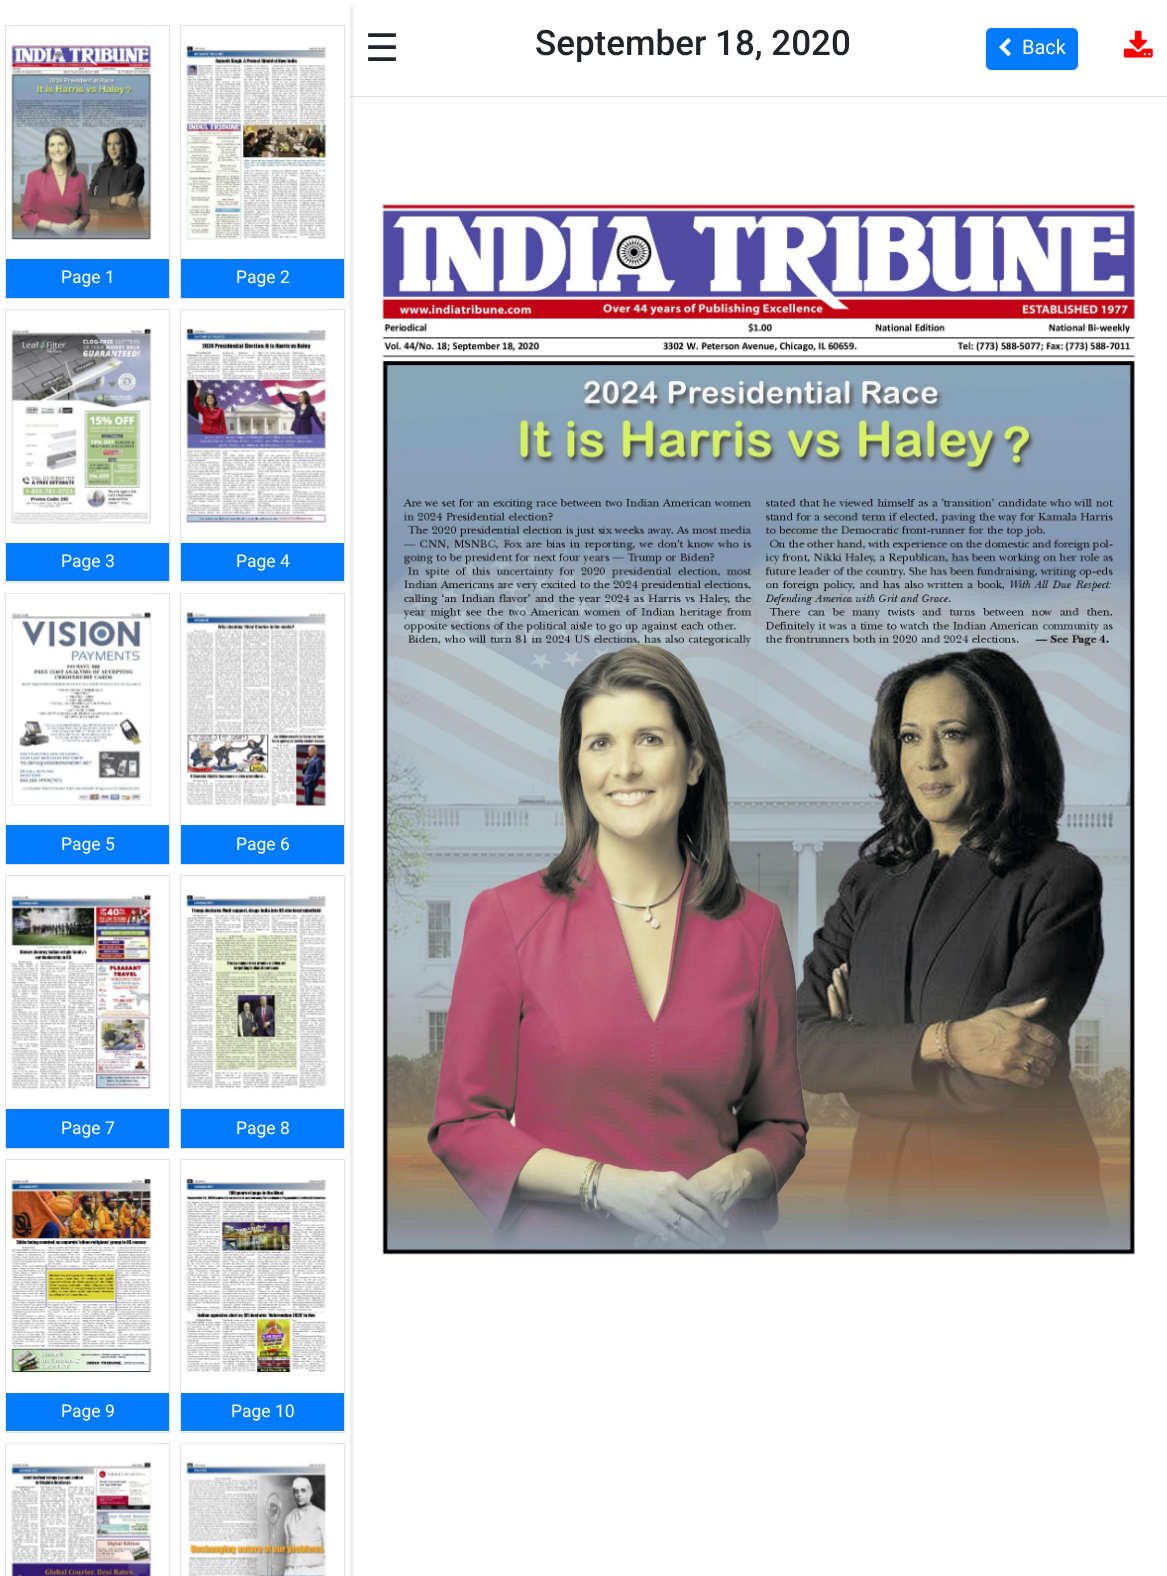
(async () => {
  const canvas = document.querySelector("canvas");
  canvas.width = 1167;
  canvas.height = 1576;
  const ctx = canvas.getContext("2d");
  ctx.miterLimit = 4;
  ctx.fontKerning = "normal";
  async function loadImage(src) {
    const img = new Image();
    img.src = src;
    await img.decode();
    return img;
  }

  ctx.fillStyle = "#ffffff";
  ctx.fillRect(0, 0, 1167, 1576);
  ctx.fillStyle = "#dee2e6";
  ctx.fillRect(350, 96, 817, 1);
  ctx.fillStyle = "#007bff";
  ctx.beginPath();
  ctx.roundRect(986.5, 28.5, 91, 41, 4.5);
  ctx.fill();
  ctx.strokeStyle = "#007bff";
  ctx.stroke();
  ctx.drawImage(await loadImage("img/1.png"), 999, 38, 12, 19);
  ctx.drawImage(await loadImage("img/2.png"), 1123, 30, 30, 28);
  ctx.drawImage(await loadImage("img/3.png"), 381, 200, 755, 1055);
  ctx.save();
  ctx.beginPath();
  ctx.rect(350, 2, 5, 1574);
  ctx.clip();
  ctx.fillStyle = "rgba(0, 0, 0, 0.16)";
  ctx.filter = "blur(4px)";
  ctx.beginPath();
  ctx.rect(0, 4, 350, 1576);
  ctx.fill();
  ctx.filter = "none";
  ctx.restore();
  ctx.strokeStyle = "#dee2e6";
  ctx.strokeRect(5.5, 25.5, 164, 273);
  ctx.drawImage(await loadImage("img/4.png"), 6, 41, 149, 200);
  ctx.fillRect(6, 259, 163, 39);
  ctx.strokeRect(180.5, 25.5, 164, 273);
  ctx.drawImage(await loadImage("img/5.png"), 181, 45, 148, 197);
  ctx.fillRect(181, 259, 163, 39);
  ctx.strokeRect(5.5, 309.5, 164, 273);
  ctx.drawImage(await loadImage("img/6.png"), 6, 309, 150, 216);
  ctx.fillRect(6, 543, 163, 38);
  ctx.strokeRect(180.5, 309.5, 164, 273);
  ctx.drawImage(await loadImage("img/7.png"), 181, 309, 150, 216);
  ctx.fillRect(181, 543, 163, 38);
  ctx.strokeRect(5.5, 593.5, 164, 271);
  ctx.drawImage(await loadImage("img/8.png"), 6, 593, 150, 213);
  ctx.fillRect(6, 825, 163, 39);
  ctx.strokeRect(180.5, 593.5, 164, 271);
  ctx.drawImage(await loadImage("img/9.png"), 181, 593, 150, 215);
  ctx.fillRect(181, 825, 163, 39);
  ctx.strokeRect(5.5, 875.5, 164, 273);
  ctx.drawImage(await loadImage("img/10.png"), 6, 894, 149, 198);
  ctx.fillRect(6, 1109, 163, 39);
  ctx.strokeRect(180.5, 875.5, 164, 273);
  ctx.drawImage(await loadImage("img/11.png"), 181, 894, 146, 195);
  ctx.fillRect(181, 1109, 163, 39);
  ctx.strokeRect(5.5, 1159.5, 164, 273);
  ctx.drawImage(await loadImage("img/12.png"), 6, 1178, 149, 195);
  ctx.fillRect(6, 1393, 163, 38);
  ctx.strokeRect(180.5, 1159.5, 164, 273);
  ctx.drawImage(await loadImage("img/13.png"), 181, 1178, 146, 198);
  ctx.fillRect(181, 1393, 163, 38);
  ctx.strokeRect(5.5, 1443.5, 164, 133);
  ctx.drawImage(await loadImage("img/14.png"), 6, 1443, 150, 133);
  ctx.strokeRect(180.5, 1443.5, 164, 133);
  ctx.drawImage(await loadImage("img/15.png"), 181, 1443, 150, 133);
  ctx.font = "38px DejaVu Sans";
  ctx.fillStyle = "#212529";
  ctx.fillText("☰", 365, 61);
  ctx.font = "500 35px Roboto";
  ctx.fillText("September 18, 2020", 535, 55);
  ctx.font = "20px Roboto";
  ctx.fillStyle = "#ffffff";
  ctx.fillText("Back", 1022, 54);
  ctx.font = "17.5px Roboto";
  for (const [text, x, y] of [
    ["Page 1", 61, 283],
    ["Page 2", 236, 283],
    ["Page 3", 61, 567],
    ["Page 4", 236, 567],
    ["Page 5", 61, 850],
    ["Page 6", 236, 850],
    ["Page 7", 61, 1134],
    ["Page 8", 236, 1134],
    ["Page 9", 61, 1417],
    ["Page 10", 231, 1417],
  ]) {
    ctx.fillText(text, x, y);
  }
})();
